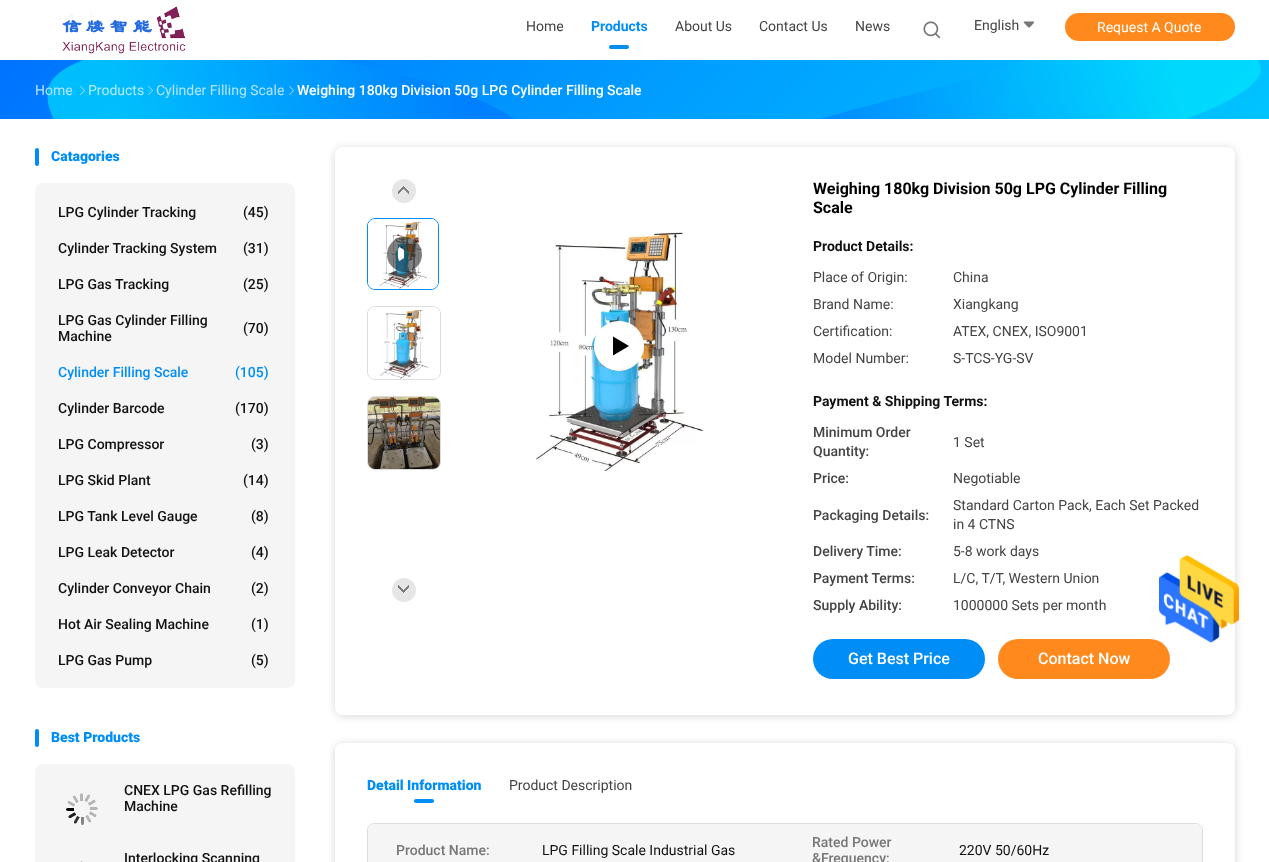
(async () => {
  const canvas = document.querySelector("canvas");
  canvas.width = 1269;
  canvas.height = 862;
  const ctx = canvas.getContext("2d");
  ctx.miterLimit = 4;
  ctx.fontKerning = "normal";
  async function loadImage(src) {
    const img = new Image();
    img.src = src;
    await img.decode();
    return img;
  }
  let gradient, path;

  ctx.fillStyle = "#ffffff";
  ctx.fillRect(0, 0, 1269, 862);
  ctx.drawImage(await loadImage("img/1.png"), 59, 6, 127, 48);
  ctx.fillStyle = "#008ef6";
  ctx.beginPath();
  ctx.roundRect(609, 45, 20, 4, 2);
  ctx.fill();
  ctx.drawImage(await loadImage("img/2.png"), 923, 21, 18, 18);
  ctx.drawImage(await loadImage("img/3.png"), 1023, 21, 12, 7);
  ctx.fillStyle = "#ff891c";
  ctx.beginPath();
  ctx.roundRect(1065, 13, 170, 28, 14);
  ctx.fill();
  gradient = ctx.createLinearGradient(302, -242, 967, 422);
  gradient.addColorStop(0, "#0073ff");
  gradient.addColorStop(1, "#00c4ff");
  ctx.fillStyle = gradient;
  ctx.fillRect(0, 60, 1269, 59);
  ctx.drawImage(await loadImage("img/4.png"), 47, 60, 467, 59);
  ctx.drawImage(await loadImage("img/5.png"), 821, 60, 440, 59);
  ctx.drawImage(await loadImage("img/6.png"), 80, 86, 5, 9);
  ctx.drawImage(await loadImage("img/7.png"), 148, 86, 5, 9);
  ctx.drawImage(await loadImage("img/8.png"), 289, 86, 5, 9);
  ctx.fillStyle = "#008ef6";
  ctx.beginPath();
  ctx.roundRect(35, 148, 4, 18, 2);
  ctx.fill();
  ctx.fillStyle = "#f5f5f5";
  ctx.beginPath();
  ctx.roundRect(35, 183, 260, 505, 8);
  ctx.fill();
  ctx.fillStyle = "#008ef6";
  ctx.beginPath();
  ctx.roundRect(35, 729, 4, 18, 2);
  ctx.fill();
  ctx.fillStyle = "#f5f5f5";
  ctx.beginPath();
  ctx.roundRect(35, 764, 260, 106, 8);
  ctx.fill();
  ctx.drawImage(await loadImage("img/9.png"), 66, 793, 32, 32);
  ctx.drawImage(await loadImage("img/10.png"), 80, 861, 3, 1);
  ctx.save();
  path = new Path2D("M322 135H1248V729H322ZM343 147H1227C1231.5 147 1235 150.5 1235 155V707C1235 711.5 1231.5 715 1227 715H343C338.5 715 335 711.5 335 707V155C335 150.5 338.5 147 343 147Z");
  ctx.clip(path, "evenodd");
  ctx.fillStyle = "rgba(0, 0, 0, 0.16)";
  ctx.filter = "blur(4px)";
  ctx.beginPath();
  ctx.roundRect(335, 148, 900, 568, 8);
  ctx.fill();
  ctx.filter = "none";
  ctx.restore();
  ctx.fillStyle = "#e6e6e6";
  ctx.beginPath();
  ctx.arc(404, 191, 12, 0, Math.PI * 2);
  ctx.fill();
  ctx.drawImage(await loadImage("img/11.png"), 398, 186, 11, 8);
  ctx.beginPath();
  ctx.roundRect(367.5, 218.5, 71, 71, 7.5);
  ctx.strokeStyle = "#008ef6";
  ctx.stroke();
  ctx.drawImage(await loadImage("img/12.png"), 368, 219, 70, 70);
  ctx.fillStyle = "rgba(0, 0, 0, 0.5)";
  ctx.beginPath();
  ctx.arc(404.5, 254.5, 17.5, 0, Math.PI * 2);
  ctx.fill();
  ctx.fillStyle = "#ffffff";
  path = new Path2D("M398 251C398 249.5 398.5 248 399.5 247L404 250V258L399.5 261C397.5 259.5 398 253.5 398 251Z");
  ctx.fill(path);
  ctx.beginPath();
  ctx.roundRect(367.5, 306.5, 73, 73, 7.5);
  ctx.strokeStyle = "#dddddd";
  ctx.stroke();
  ctx.drawImage(await loadImage("img/13.png"), 368, 307, 72, 72);
  ctx.beginPath();
  ctx.roundRect(367.5, 396.5, 73, 73, 7.5);
  ctx.stroke();
  ctx.drawImage(await loadImage("img/14.png"), 368, 397, 72, 72);
  ctx.fillStyle = "#e6e6e6";
  ctx.beginPath();
  ctx.arc(404, 590, 12, 0, Math.PI * 2);
  ctx.fill();
  ctx.drawImage(await loadImage("img/15.png"), 398, 585, 11, 8);
  ctx.drawImage(await loadImage("img/16.png"), 536, 232, 168, 239);
  ctx.fillStyle = "#000000";
  ctx.beginPath();
  ctx.arc(619, 347, 24, 0, Math.PI * 2);
  ctx.fill();
  ctx.drawImage(await loadImage("img/17.png"), 594, 321, 50, 50);
  ctx.fillStyle = "#008ef6";
  ctx.beginPath();
  ctx.roundRect(813, 639, 172, 40, 20);
  ctx.fill();
  ctx.fillStyle = "#ff891c";
  ctx.beginPath();
  ctx.roundRect(998, 639, 172, 40, 20);
  ctx.fill();
  ctx.save();
  path = new Path2D("M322 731H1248V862H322ZM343 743H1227C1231.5 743 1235 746.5 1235 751V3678C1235 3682.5 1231.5 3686 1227 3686H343C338.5 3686 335 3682.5 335 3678V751C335 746.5 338.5 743 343 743Z");
  ctx.clip(path, "evenodd");
  ctx.fillStyle = "rgba(0, 0, 0, 0.16)";
  ctx.filter = "blur(4px)";
  ctx.beginPath();
  ctx.roundRect(335, 744, 900, 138, 8);
  ctx.fill();
  ctx.filter = "none";
  ctx.restore();
  ctx.fillStyle = "#008ef6";
  ctx.beginPath();
  ctx.roundRect(414, 799, 20, 4, 2);
  ctx.fill();
  ctx.beginPath();
  ctx.roundRect(367.5, 823.5, 835, 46, 6.5);
  ctx.stroke();
  ctx.fillStyle = "#f5f5f5";
  path = new Path2D("M374 824H1196C1199.5 824 1202 826.5 1202 830V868H368V830C368 826.5 370.5 824 374 824Z");
  ctx.fill(path);
  ctx.drawImage(await loadImage("img/18.png"), 1159, 555, 80, 88);
  ctx.font = "14px Roboto";
  ctx.fillStyle = "#444444";
  ctx.fillText("Home", 526, 31);
  ctx.font = "bold 14px Roboto";
  ctx.fillStyle = "#008ef6";
  ctx.fillText("Products", 591, 31);
  ctx.font = "14px Roboto";
  ctx.fillStyle = "#444444";
  for (const [text, x, y] of [
    ["About Us", 675, 31],
    ["Contact Us", 759, 31],
    ["News", 855, 31],
    ["English", 974, 30],
  ]) {
    ctx.fillText(text, x, y);
  }
  ctx.fillStyle = "#ffffff";
  ctx.fillText("Request A Quote", 1097, 32);
  ctx.fillStyle = "#b3e4ff";
  ctx.fillText("Home", 35, 95);
  ctx.fillStyle = "#b3ebfe";
  ctx.fillText("Products", 88, 95);
  ctx.fillStyle = "#b3e4ff";
  ctx.fillText("Cylinder Filling Scale", 156, 95);
  ctx.font = "500 14px Roboto";
  ctx.fillStyle = "#ffffff";
  ctx.fillText("Weighing 180kg Division 50g LPG Cylinder Filling Scale", 297, 95);
  ctx.font = "900 14px Roboto";
  ctx.fillStyle = "#008ef6";
  ctx.fillText("Catagories", 51, 161);
  ctx.font = "500 14px Roboto";
  ctx.fillStyle = "#111111";
  for (const [text, x, y] of [
    ["LPG Cylinder Tracking", 58, 217],
    ["(45)", 243, 217],
    ["Cylinder Tracking System", 58, 253],
    ["(31)", 243, 253],
    ["LPG Gas Tracking", 58, 289],
    ["(25)", 243, 289],
    ["LPG Gas Cylinder Filling", 58, 325],
    ["(70)", 243, 333],
    ["Machine", 58, 341],
  ]) {
    ctx.fillText(text, x, y);
  }
  ctx.fillStyle = "#008ef6";
  ctx.fillText("Cylinder Filling Scale", 58, 377);
  ctx.fillText("(105)", 235, 377);
  ctx.fillStyle = "#111111";
  for (const [text, x, y] of [
    ["Cylinder Barcode", 58, 413],
    ["(170)", 235, 413],
    ["LPG Compressor", 58, 449],
    ["(3)", 251, 449],
    ["LPG Skid Plant", 58, 485],
    ["(14)", 243, 485],
    ["LPG Tank Level Gauge", 58, 521],
    ["(8)", 251, 521],
    ["LPG Leak Detector", 58, 557],
    ["(4)", 251, 557],
    ["Cylinder Conveyor Chain", 58, 593],
    ["(2)", 251, 593],
    ["Hot Air Sealing Machine", 58, 629],
    ["(1)", 251, 629],
    ["LPG Gas Pump", 58, 665],
    ["(5)", 251, 665],
  ]) {
    ctx.fillText(text, x, y);
  }
  ctx.font = "900 14px Roboto";
  ctx.fillStyle = "#008ef6";
  ctx.fillText("Best Products", 51, 742);
  ctx.font = "500 14px Roboto";
  ctx.fillStyle = "#111111";
  for (const [text, x, y] of [
    ["CNEX LPG Gas Refilling", 124, 795],
    ["Machine", 124, 811],
    ["Interlocking Scanning", 124, 863],
  ]) {
    ctx.fillText(text, x, y);
  }
  ctx.font = "bold 16px Roboto";
  ctx.fillStyle = "#000000";
  ctx.fillText("Weighing 180kg Division 50g LPG Cylinder Filling", 813, 194);
  ctx.fillText("Scale", 813, 213);
  ctx.font = "bold 14px Roboto";
  ctx.fillStyle = "#111111";
  ctx.fillText("Product Details:", 813, 251);
  ctx.font = "14px Roboto";
  ctx.fillStyle = "#444444";
  for (const [text, x, y] of [
    ["Place of Origin:", 813, 282],
    ["China", 953, 282],
    ["Brand Name:", 813, 309],
    ["Xiangkang", 953, 309],
    ["Certification:", 813, 336],
    ["ATEX, CNEX, ISO9001", 953, 336],
    ["Model Number:", 813, 363],
    ["S-TCS-YG-SV", 953, 363],
  ]) {
    ctx.fillText(text, x, y);
  }
  ctx.font = "bold 14px Roboto";
  ctx.fillStyle = "#111111";
  ctx.fillText("Payment & Shipping Terms:", 813, 406);
  ctx.font = "500 14px Roboto";
  ctx.fillStyle = "#444444";
  ctx.fillText("Minimum Order", 813, 437);
  ctx.fillText("Quantity:", 813, 456);
  ctx.font = "14px Roboto";
  ctx.fillText("1 Set", 953, 447);
  ctx.font = "500 14px Roboto";
  ctx.fillText("Price:", 813, 483);
  ctx.font = "14px Roboto";
  ctx.fillText("Negotiable", 953, 483);
  ctx.font = "500 14px Roboto";
  ctx.fillText("Packaging Details:", 813, 520);
  ctx.font = "14px Roboto";
  ctx.fillText("Standard Carton Pack, Each Set Packed", 953, 510);
  ctx.fillText("in 4 CTNS", 953, 529);
  ctx.font = "500 14px Roboto";
  ctx.fillText("Delivery Time:", 813, 556);
  ctx.font = "14px Roboto";
  ctx.fillText("5-8 work days", 953, 556);
  ctx.font = "500 14px Roboto";
  ctx.fillText("Payment Terms:", 813, 583);
  ctx.font = "14px Roboto";
  ctx.fillText("L/C, T/T, Western Union", 953, 583);
  ctx.font = "500 14px Roboto";
  ctx.fillText("Supply Ability:", 813, 610);
  ctx.font = "14px Roboto";
  ctx.fillText("1000000 Sets per month", 953, 610);
  ctx.font = "500 16px Roboto";
  ctx.fillStyle = "#ffffff";
  ctx.fillText("Get Best Price", 848, 664);
  ctx.fillText("Contact Now", 1038, 664);
  ctx.font = "900 14px Roboto";
  ctx.fillStyle = "#008ef6";
  ctx.fillText("Detail Information", 367, 790);
  ctx.font = "14px Roboto";
  ctx.fillStyle = "#444444";
  ctx.fillText("Product Description", 509, 790);
  ctx.font = "500 14px Roboto";
  ctx.fillStyle = "#777777";
  ctx.fillText("Product Name:", 396, 855);
  ctx.font = "14px Roboto";
  ctx.fillStyle = "#111111";
  ctx.fillText("LPG Filling Scale Industrial Gas", 542, 855);
  ctx.font = "500 14px Roboto";
  ctx.fillStyle = "#777777";
  ctx.fillText("Rated Power", 812, 847);
  ctx.fillText("&Frequency:", 812, 863);
  ctx.font = "14px Roboto";
  ctx.fillStyle = "#111111";
  ctx.fillText("220V 50/60Hz", 959, 855);
})();
